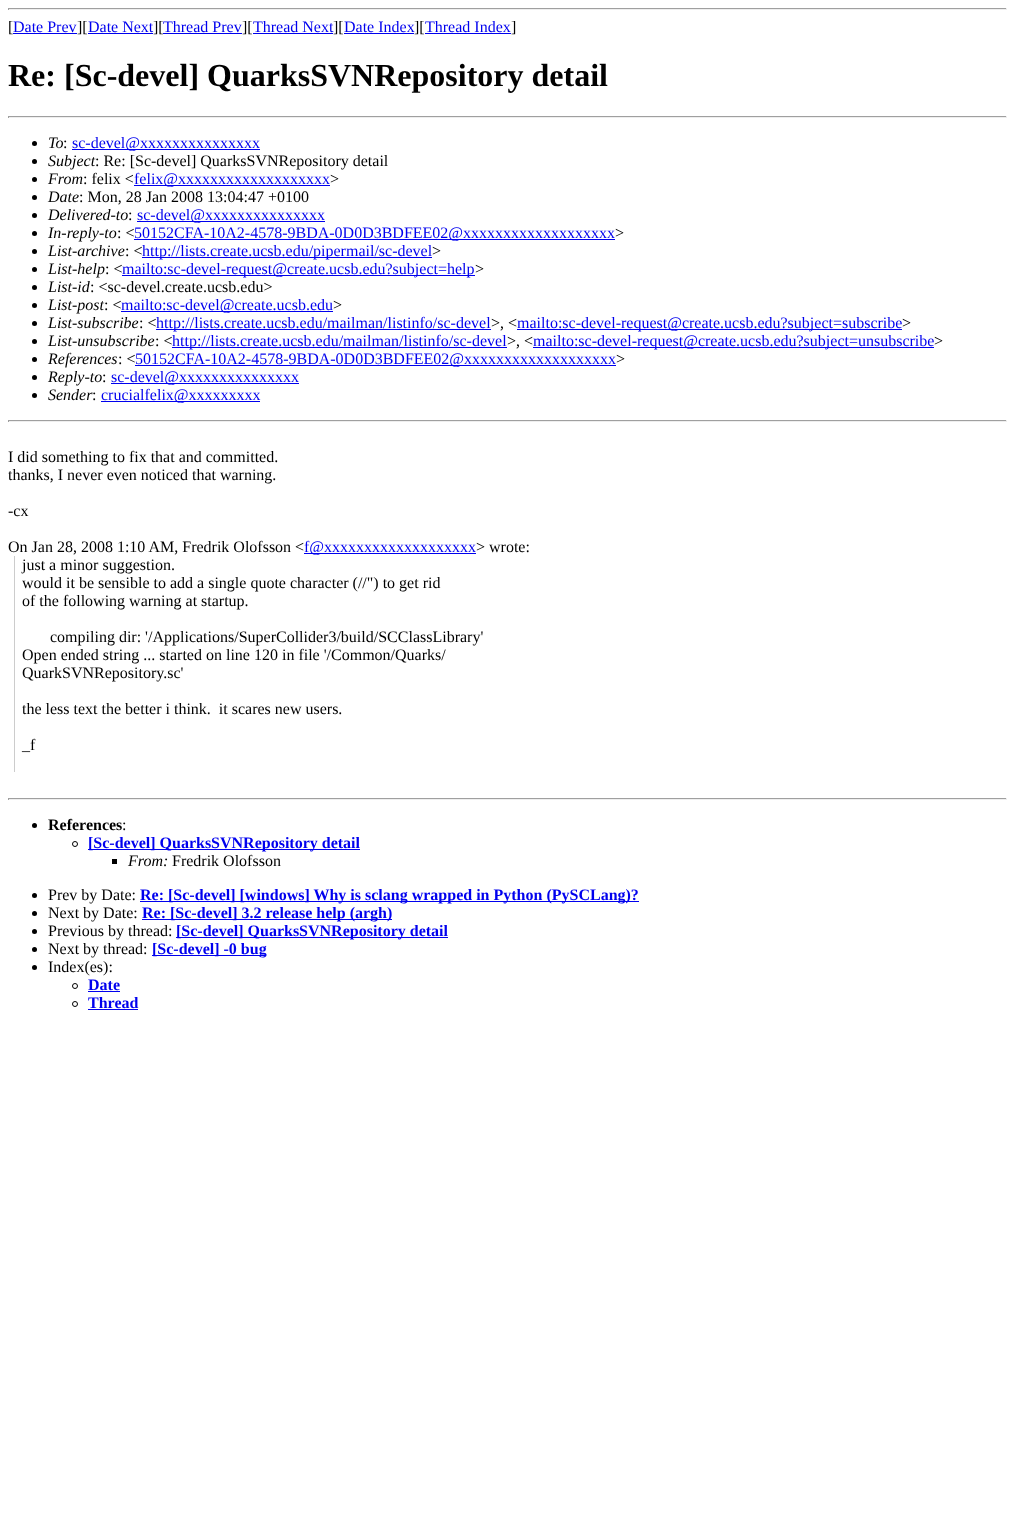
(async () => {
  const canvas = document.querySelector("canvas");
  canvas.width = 1015;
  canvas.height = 1515;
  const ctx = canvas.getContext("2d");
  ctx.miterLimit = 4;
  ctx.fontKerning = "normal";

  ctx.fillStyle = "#ffffff";
  ctx.fillRect(0, 0, 1015, 1515);
  for (const [x, y, w, h, color] of [
    [8, 8, 999, 1, "#9f9f9f"],
    [1006, 8, 1, 2, "#eeeeee"],
    [8, 9, 999, 1, "#eeeeee"],
    [8, 8, 1, 2, "#9f9f9f"],
    [13, 33, 64, 1, "#0000ee"],
    [88, 33, 65, 1, "#0000ee"],
    [163, 33, 79, 1, "#0000ee"],
    [253, 33, 80, 1, "#0000ee"],
    [344, 33, 70, 1, "#0000ee"],
    [425, 33, 86, 1, "#0000ee"],
    [8, 116, 999, 1, "#9f9f9f"],
    [1006, 116, 1, 2, "#eeeeee"],
    [8, 117, 999, 1, "#eeeeee"],
    [8, 116, 1, 2, "#9f9f9f"],
  ]) {
    ctx.fillStyle = color;
    ctx.fillRect(x, y, w, h);
  }
  ctx.fillStyle = "#000000";
  ctx.beginPath();
  ctx.arc(34.5, 143.5, 2.5, 0, Math.PI * 2);
  ctx.fill();
  ctx.fillStyle = "#0000ee";
  ctx.fillRect(72, 149, 188, 1);
  ctx.fillStyle = "#000000";
  ctx.beginPath();
  ctx.arc(34.5, 161.5, 2.5, 0, Math.PI * 2);
  ctx.fill();
  ctx.beginPath();
  ctx.arc(34.5, 179.5, 2.5, 0, Math.PI * 2);
  ctx.fill();
  ctx.fillStyle = "#0000ee";
  ctx.fillRect(134, 185, 196, 1);
  ctx.fillStyle = "#000000";
  ctx.beginPath();
  ctx.arc(34.5, 197.5, 2.5, 0, Math.PI * 2);
  ctx.fill();
  ctx.beginPath();
  ctx.arc(34.5, 215.5, 2.5, 0, Math.PI * 2);
  ctx.fill();
  ctx.fillStyle = "#0000ee";
  ctx.fillRect(137, 221, 188, 1);
  ctx.fillStyle = "#000000";
  ctx.beginPath();
  ctx.arc(34.5, 233.5, 2.5, 0, Math.PI * 2);
  ctx.fill();
  ctx.fillStyle = "#0000ee";
  ctx.fillRect(134, 239, 481, 1);
  ctx.fillStyle = "#000000";
  ctx.beginPath();
  ctx.arc(34.5, 251.5, 2.5, 0, Math.PI * 2);
  ctx.fill();
  ctx.fillStyle = "#0000ee";
  ctx.fillRect(142, 257, 290, 1);
  ctx.fillStyle = "#000000";
  ctx.beginPath();
  ctx.arc(34.5, 269.5, 2.5, 0, Math.PI * 2);
  ctx.fill();
  ctx.fillStyle = "#0000ee";
  ctx.fillRect(122, 275, 353, 1);
  ctx.fillStyle = "#000000";
  ctx.beginPath();
  ctx.arc(34.5, 287.5, 2.5, 0, Math.PI * 2);
  ctx.fill();
  ctx.beginPath();
  ctx.arc(34.5, 305.5, 2.5, 0, Math.PI * 2);
  ctx.fill();
  ctx.fillStyle = "#0000ee";
  ctx.fillRect(121, 311, 212, 1);
  ctx.fillStyle = "#000000";
  ctx.beginPath();
  ctx.arc(34.5, 323.5, 2.5, 0, Math.PI * 2);
  ctx.fill();
  ctx.fillStyle = "#0000ee";
  ctx.fillRect(156, 329, 335, 1);
  ctx.fillRect(517, 329, 385, 1);
  ctx.fillStyle = "#000000";
  ctx.beginPath();
  ctx.arc(34.5, 341.5, 2.5, 0, Math.PI * 2);
  ctx.fill();
  ctx.fillStyle = "#0000ee";
  ctx.fillRect(172, 347, 335, 1);
  ctx.fillRect(533, 347, 401, 1);
  ctx.fillStyle = "#000000";
  ctx.beginPath();
  ctx.arc(34.5, 359.5, 2.5, 0, Math.PI * 2);
  ctx.fill();
  ctx.fillStyle = "#0000ee";
  ctx.fillRect(135, 365, 481, 1);
  ctx.fillStyle = "#000000";
  ctx.beginPath();
  ctx.arc(34.5, 377.5, 2.5, 0, Math.PI * 2);
  ctx.fill();
  ctx.fillStyle = "#0000ee";
  ctx.fillRect(111, 383, 188, 1);
  ctx.fillStyle = "#000000";
  ctx.beginPath();
  ctx.arc(34.5, 395.5, 2.5, 0, Math.PI * 2);
  ctx.fill();
  for (const [x, y, w, h, color] of [
    [101, 401, 159, 1, "#0000ee"],
    [8, 420, 999, 1, "#9f9f9f"],
    [1006, 420, 1, 2, "#eeeeee"],
    [8, 421, 999, 1, "#eeeeee"],
    [8, 420, 1, 2, "#9f9f9f"],
    [304, 553, 172, 1, "#0000ee"],
    [14, 556, 1, 216, "#cccccc"],
    [8, 798, 999, 1, "#9f9f9f"],
    [1006, 798, 1, 2, "#eeeeee"],
    [8, 799, 999, 1, "#eeeeee"],
    [8, 798, 1, 2, "#9f9f9f"],
  ]) {
    ctx.fillStyle = color;
    ctx.fillRect(x, y, w, h);
  }
  ctx.fillStyle = "#000000";
  ctx.beginPath();
  ctx.arc(34.5, 825.5, 2.5, 0, Math.PI * 2);
  ctx.fill();
  ctx.beginPath();
  ctx.arc(75, 844, 2.5, 0, Math.PI * 2);
  ctx.strokeStyle = "#000000";
  ctx.stroke();
  ctx.fillStyle = "#0000ee";
  ctx.fillRect(88, 849, 272, 1);
  ctx.fillStyle = "#000000";
  ctx.fillRect(112, 859, 5, 5);
  ctx.beginPath();
  ctx.arc(34.5, 895.5, 2.5, 0, Math.PI * 2);
  ctx.fill();
  ctx.fillStyle = "#0000ee";
  ctx.fillRect(140, 901, 499, 1);
  ctx.fillStyle = "#000000";
  ctx.beginPath();
  ctx.arc(34.5, 913.5, 2.5, 0, Math.PI * 2);
  ctx.fill();
  ctx.fillStyle = "#0000ee";
  ctx.fillRect(142, 919, 250, 1);
  ctx.fillStyle = "#000000";
  ctx.beginPath();
  ctx.arc(34.5, 931.5, 2.5, 0, Math.PI * 2);
  ctx.fill();
  ctx.fillStyle = "#0000ee";
  ctx.fillRect(176, 937, 272, 1);
  ctx.fillStyle = "#000000";
  ctx.beginPath();
  ctx.arc(34.5, 949.5, 2.5, 0, Math.PI * 2);
  ctx.fill();
  ctx.fillStyle = "#0000ee";
  ctx.fillRect(152, 955, 114, 1);
  ctx.fillStyle = "#000000";
  ctx.beginPath();
  ctx.arc(34.5, 967.5, 2.5, 0, Math.PI * 2);
  ctx.fill();
  ctx.beginPath();
  ctx.arc(75, 986, 2.5, 0, Math.PI * 2);
  ctx.stroke();
  ctx.fillStyle = "#0000ee";
  ctx.fillRect(88, 991, 32, 1);
  ctx.beginPath();
  ctx.arc(75, 1004, 2.5, 0, Math.PI * 2);
  ctx.stroke();
  ctx.fillRect(88, 1009, 50, 1);
  ctx.font = "16px Liberation Serif";
  ctx.fillStyle = "#000000";
  ctx.fillText("[", 8, 32);
  ctx.fillStyle = "#0000ee";
  ctx.fillText("Date Prev", 13, 32);
  ctx.fillStyle = "#000000";
  ctx.fillText("][", 77, 32);
  ctx.fillStyle = "#0000ee";
  ctx.fillText("Date Next", 88, 32);
  ctx.fillStyle = "#000000";
  ctx.fillText("][", 153, 32);
  ctx.fillStyle = "#0000ee";
  ctx.fillText("Thread Prev", 163, 32);
  ctx.fillStyle = "#000000";
  ctx.fillText("][", 242, 32);
  ctx.fillStyle = "#0000ee";
  ctx.fillText("Thread Next", 253, 32);
  ctx.fillStyle = "#000000";
  ctx.fillText("][", 333, 32);
  ctx.fillStyle = "#0000ee";
  ctx.fillText("Date Index", 344, 32);
  ctx.fillStyle = "#000000";
  ctx.fillText("][", 414, 32);
  ctx.fillStyle = "#0000ee";
  ctx.fillText("Thread Index", 425, 32);
  ctx.fillStyle = "#000000";
  ctx.fillText("]", 511, 32);
  ctx.font = "bold 32px Liberation Serif";
  ctx.fillText("Re: [Sc-devel] QuarksSVNRepository detail", 8, 86);
  ctx.font = "italic 16px Liberation Serif";
  ctx.fillText("To", 48, 148);
  ctx.font = "16px Liberation Serif";
  ctx.fillText(":", 63, 148);
  ctx.fillStyle = "#0000ee";
  ctx.fillText("sc-devel@xxxxxxxxxxxxxxx", 72, 148);
  ctx.font = "italic 16px Liberation Serif";
  ctx.fillStyle = "#000000";
  ctx.fillText("Subject", 48, 166);
  ctx.font = "16px Liberation Serif";
  ctx.fillText(": Re: [Sc-devel] QuarksSVNRepository detail", 95, 166);
  ctx.font = "italic 16px Liberation Serif";
  ctx.fillText("From", 48, 184);
  ctx.font = "16px Liberation Serif";
  ctx.fillText(": felix <", 83, 184);
  ctx.fillStyle = "#0000ee";
  ctx.fillText("felix@xxxxxxxxxxxxxxxxxxx", 134, 184);
  ctx.fillStyle = "#000000";
  ctx.fillText(">", 330, 184);
  ctx.font = "italic 16px Liberation Serif";
  ctx.fillText("Date", 48, 202);
  ctx.font = "16px Liberation Serif";
  ctx.fillText(": Mon, 28 Jan 2008 13:04:47 +0100", 79, 202);
  ctx.font = "italic 16px Liberation Serif";
  ctx.fillText("Delivered-to", 48, 220);
  ctx.font = "16px Liberation Serif";
  ctx.fillText(":", 128, 220);
  ctx.fillStyle = "#0000ee";
  ctx.fillText("sc-devel@xxxxxxxxxxxxxxx", 137, 220);
  ctx.font = "italic 16px Liberation Serif";
  ctx.fillStyle = "#000000";
  ctx.fillText("In-reply-to", 48, 238);
  ctx.font = "16px Liberation Serif";
  ctx.fillText(": <", 117, 238);
  ctx.fillStyle = "#0000ee";
  ctx.fillText("50152CFA-10A2-4578-9BDA-0D0D3BDFEE02@xxxxxxxxxxxxxxxxxxx", 134, 238);
  ctx.fillStyle = "#000000";
  ctx.fillText(">", 615, 238);
  ctx.font = "italic 16px Liberation Serif";
  ctx.fillText("List-archive", 48, 256);
  ctx.font = "16px Liberation Serif";
  ctx.fillText(": <", 125, 256);
  ctx.fillStyle = "#0000ee";
  ctx.fillText("http://lists.create.ucsb.edu/pipermail/sc-devel", 142, 256);
  ctx.fillStyle = "#000000";
  ctx.fillText(">", 432, 256);
  ctx.font = "italic 16px Liberation Serif";
  ctx.fillText("List-help", 48, 274);
  ctx.font = "16px Liberation Serif";
  ctx.fillText(": <", 105, 274);
  ctx.fillStyle = "#0000ee";
  ctx.fillText("mailto:sc-devel-request@create.ucsb.edu?subject=help", 122, 274);
  ctx.fillStyle = "#000000";
  ctx.fillText(">", 475, 274);
  ctx.font = "italic 16px Liberation Serif";
  ctx.fillText("List-id", 48, 292);
  ctx.font = "16px Liberation Serif";
  ctx.fillText(": <sc-devel.create.ucsb.edu>", 90, 292);
  ctx.font = "italic 16px Liberation Serif";
  ctx.fillText("List-post", 48, 310);
  ctx.font = "16px Liberation Serif";
  ctx.fillText(": <", 104, 310);
  ctx.fillStyle = "#0000ee";
  ctx.fillText("mailto:sc-devel@create.ucsb.edu", 121, 310);
  ctx.fillStyle = "#000000";
  ctx.fillText(">", 333, 310);
  ctx.font = "italic 16px Liberation Serif";
  ctx.fillText("List-subscribe", 48, 328);
  ctx.font = "16px Liberation Serif";
  ctx.fillText(": <", 139, 328);
  ctx.fillStyle = "#0000ee";
  ctx.fillText("http://lists.create.ucsb.edu/mailman/listinfo/sc-devel", 156, 328);
  ctx.fillStyle = "#000000";
  ctx.fillText(">, <", 491, 328);
  ctx.fillStyle = "#0000ee";
  ctx.fillText("mailto:sc-devel-request@create.ucsb.edu?subject=subscribe", 517, 328);
  ctx.fillStyle = "#000000";
  ctx.fillText(">", 902, 328);
  ctx.font = "italic 16px Liberation Serif";
  ctx.fillText("List-unsubscribe", 48, 346);
  ctx.font = "16px Liberation Serif";
  ctx.fillText(": <", 155, 346);
  ctx.fillStyle = "#0000ee";
  ctx.fillText("http://lists.create.ucsb.edu/mailman/listinfo/sc-devel", 172, 346);
  ctx.fillStyle = "#000000";
  ctx.fillText(">, <", 507, 346);
  ctx.fillStyle = "#0000ee";
  ctx.fillText("mailto:sc-devel-request@create.ucsb.edu?subject=unsubscribe", 533, 346);
  ctx.fillStyle = "#000000";
  ctx.fillText(">", 934, 346);
  ctx.font = "italic 16px Liberation Serif";
  ctx.fillText("References", 48, 364);
  ctx.font = "16px Liberation Serif";
  ctx.fillText(": <", 118, 364);
  ctx.fillStyle = "#0000ee";
  ctx.fillText("50152CFA-10A2-4578-9BDA-0D0D3BDFEE02@xxxxxxxxxxxxxxxxxxx", 135, 364);
  ctx.fillStyle = "#000000";
  ctx.fillText(">", 616, 364);
  ctx.font = "italic 16px Liberation Serif";
  ctx.fillText("Reply-to", 48, 382);
  ctx.font = "16px Liberation Serif";
  ctx.fillText(":", 102, 382);
  ctx.fillStyle = "#0000ee";
  ctx.fillText("sc-devel@xxxxxxxxxxxxxxx", 111, 382);
  ctx.font = "italic 16px Liberation Serif";
  ctx.fillStyle = "#000000";
  ctx.fillText("Sender", 48, 400);
  ctx.font = "16px Liberation Serif";
  ctx.fillText(":", 92, 400);
  ctx.fillStyle = "#0000ee";
  ctx.fillText("crucialfelix@xxxxxxxxx", 101, 400);
  ctx.fillStyle = "#000000";
  for (const [text, x, y] of [
    ["I did something to fix that and committed.", 8, 462],
    ["thanks, I never even noticed that warning.", 8, 480],
    ["-cx", 8, 516],
    ["On Jan 28, 2008 1:10 AM, Fredrik Olofsson <", 8, 552],
  ]) {
    ctx.fillText(text, x, y);
  }
  ctx.fillStyle = "#0000ee";
  ctx.fillText("f@xxxxxxxxxxxxxxxxxxx", 304, 552);
  ctx.fillStyle = "#000000";
  for (const [text, x, y] of [
    ["> wrote:", 476, 552],
    ["just a minor suggestion.", 22, 570],
    ["would it be sensible to add a single quote character (//\") to get rid", 22, 588],
    ["of the following warning at startup.", 22, 606],
    ["compiling dir: '/Applications/SuperCollider3/build/SCClassLibrary'", 50, 642],
    ["Open ended string ... started on line 120 in file '/Common/Quarks/", 22, 660],
    ["QuarkSVNRepository.sc'", 22, 678],
    ["the less text the better i think.  it scares new users.", 22, 714],
    ["_f", 22, 750],
  ]) {
    ctx.fillText(text, x, y);
  }
  ctx.font = "bold 16px Liberation Serif";
  ctx.fillText("References", 48, 830);
  ctx.font = "16px Liberation Serif";
  ctx.fillText(":", 122, 830);
  ctx.font = "bold 16px Liberation Serif";
  ctx.fillStyle = "#0000ee";
  ctx.fillText("[Sc-devel] QuarksSVNRepository detail", 88, 848);
  ctx.font = "italic 16px Liberation Serif";
  ctx.fillStyle = "#000000";
  ctx.fillText("From:", 128, 866);
  ctx.font = "16px Liberation Serif";
  ctx.fillText("Fredrik Olofsson", 172, 866);
  ctx.fillText("Prev by Date:", 48, 900);
  ctx.font = "bold 16px Liberation Serif";
  ctx.fillStyle = "#0000ee";
  ctx.fillText("Re: [Sc-devel] [windows] Why is sclang wrapped in Python (PySCLang)?", 140, 900);
  ctx.font = "16px Liberation Serif";
  ctx.fillStyle = "#000000";
  ctx.fillText("Next by Date:", 48, 918);
  ctx.font = "bold 16px Liberation Serif";
  ctx.fillStyle = "#0000ee";
  ctx.fillText("Re: [Sc-devel] 3.2 release help (argh)", 142, 918);
  ctx.font = "16px Liberation Serif";
  ctx.fillStyle = "#000000";
  ctx.fillText("Previous by thread:", 48, 936);
  ctx.font = "bold 16px Liberation Serif";
  ctx.fillStyle = "#0000ee";
  ctx.fillText("[Sc-devel] QuarksSVNRepository detail", 176, 936);
  ctx.font = "16px Liberation Serif";
  ctx.fillStyle = "#000000";
  ctx.fillText("Next by thread:", 48, 954);
  ctx.font = "bold 16px Liberation Serif";
  ctx.fillStyle = "#0000ee";
  ctx.fillText("[Sc-devel] -0 bug", 152, 954);
  ctx.font = "16px Liberation Serif";
  ctx.fillStyle = "#000000";
  ctx.fillText("Index(es):", 48, 972);
  ctx.font = "bold 16px Liberation Serif";
  ctx.fillStyle = "#0000ee";
  ctx.fillText("Date", 88, 990);
  ctx.fillText("Thread", 88, 1008);
})();
